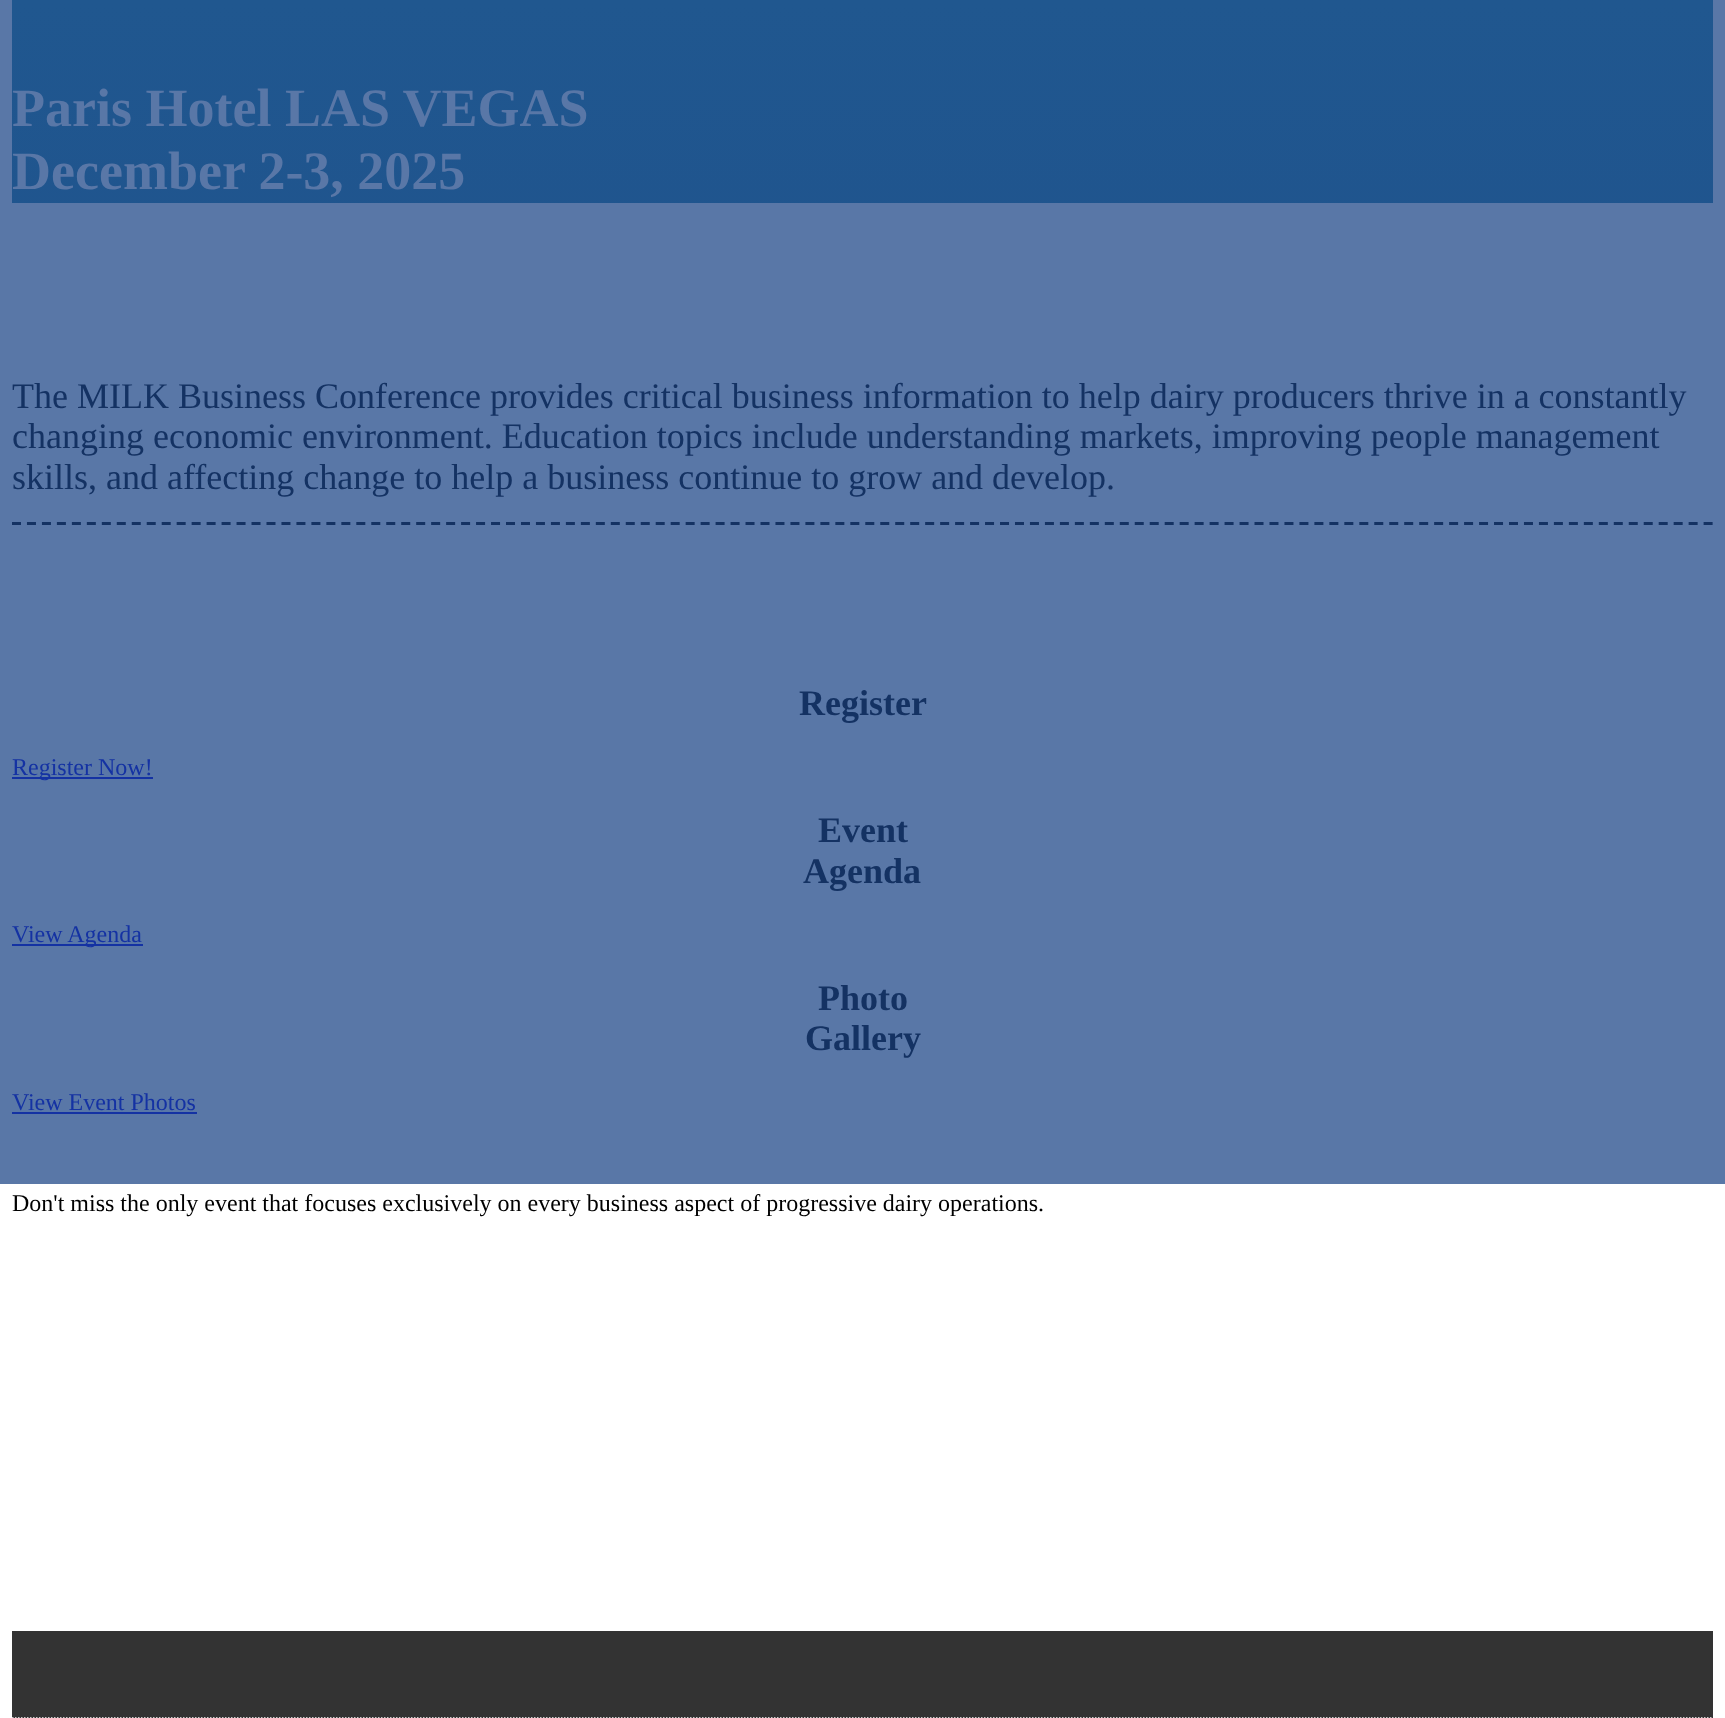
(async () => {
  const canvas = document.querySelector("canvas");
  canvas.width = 1725;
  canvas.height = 1718;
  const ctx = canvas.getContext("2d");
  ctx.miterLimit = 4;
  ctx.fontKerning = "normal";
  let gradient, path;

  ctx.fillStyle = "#ffffff";
  ctx.fillRect(0, 0, 1725, 1718);
  ctx.fillStyle = "#5977a7";
  ctx.fillRect(0, 0, 1725, 1184);
  gradient = ctx.createLinearGradient(862, 0, 863, 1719);
  gradient.addColorStop(0, "#20578f");
  gradient.addColorStop(1, "#1c4587");
  ctx.fillStyle = gradient;
  ctx.fillRect(12, 0, 1701, 203);
  path = new Path2D("M12 523.5H1713");
  ctx.strokeStyle = "#143263";
  ctx.lineWidth = 3;
  ctx.setLineDash([9, 5.97]);
  ctx.stroke(path);
  for (const [x, y, w, h, color] of [
    [12, 777, 141, 2, "#1432a3"],
    [12, 944, 131, 2, "#1432a3"],
    [12, 1112, 185, 2, "#1432a3"],
    [12, 1631, 1701, 87, "#333333"],
  ]) {
    ctx.fillStyle = color;
    ctx.fillRect(x, y, w, h);
  }
  path = new Path2D("M12 1718H1713");
  ctx.strokeStyle = "#ffffff";
  ctx.lineWidth = 1.5;
  ctx.setLineDash([1.5, 1.5]);
  ctx.stroke(path);
  ctx.font = "bold 54px Liberation Serif";
  ctx.fillStyle = "#5977a7";
  ctx.fillText("Paris Hotel LAS VEGAS", 12, 126);
  ctx.fillText("December 2-3, 2025", 12, 189);
  ctx.font = "36px Liberation Serif";
  ctx.fillStyle = "#143263";
  for (const [text, x, y] of [
    ["The MILK Business Conference provides critical business information to help dairy producers thrive in a constantly", 12, 408],
    ["changing economic environment. Education topics include understanding markets, improving people management", 12, 448],
    ["skills, and affecting change to help a business continue to grow and develop.", 12, 489],
  ]) {
    ctx.fillText(text, x, y);
  }
  ctx.font = "bold 36px Liberation Serif";
  ctx.fillText("Register", 799, 715);
  ctx.font = "24px Liberation Serif";
  ctx.fillStyle = "#1432a3";
  ctx.fillText("Register Now!", 12, 775);
  ctx.font = "bold 36px Liberation Serif";
  ctx.fillStyle = "#143263";
  ctx.fillText("Event", 818, 842);
  ctx.fillText("Agenda", 803, 883);
  ctx.font = "24px Liberation Serif";
  ctx.fillStyle = "#1432a3";
  ctx.fillText("View Agenda", 12, 942);
  ctx.font = "bold 36px Liberation Serif";
  ctx.fillStyle = "#143263";
  ctx.fillText("Photo", 818, 1010);
  ctx.fillText("Gallery", 805, 1050);
  ctx.font = "24px Liberation Serif";
  ctx.fillStyle = "#1432a3";
  ctx.fillText("View Event Photos", 12, 1110);
  ctx.fillStyle = "#000000";
  ctx.fillText("Don't miss the only event that focuses exclusively on every business aspect of progressive dairy operations.", 12, 1211);
})();
